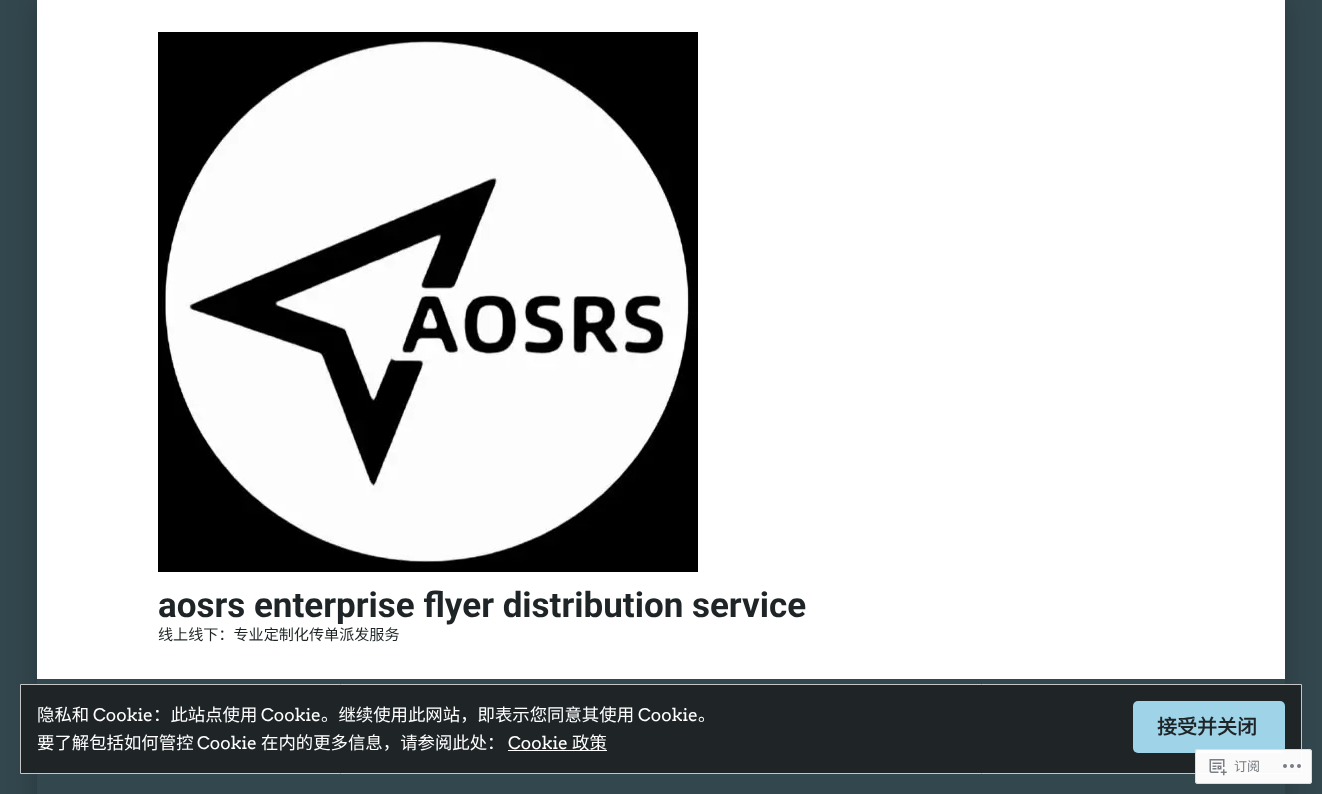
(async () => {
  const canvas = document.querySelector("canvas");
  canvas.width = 1322;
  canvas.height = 794;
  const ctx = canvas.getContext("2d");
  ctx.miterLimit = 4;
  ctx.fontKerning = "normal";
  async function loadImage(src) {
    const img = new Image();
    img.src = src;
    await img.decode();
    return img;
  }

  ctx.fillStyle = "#33474e";
  ctx.fillRect(0, 0, 1322, 794);
  ctx.fillStyle = "rgba(0, 0, 0, 0.2)";
  ctx.filter = "blur(15px)";
  ctx.beginPath();
  ctx.rect(37, 0, 1248, 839);
  ctx.fill();
  ctx.filter = "none";
  ctx.fillStyle = "#ffffff";
  ctx.fillRect(37, 0, 1248, 679);
  ctx.drawImage(await loadImage("img/1.png"), 158, 32, 540, 540);
  ctx.fillStyle = "#33474e";
  ctx.fillRect(37, 679, 1248, 115);
  ctx.fillStyle = "#1f2527";
  ctx.beginPath();
  ctx.rect(20.5, 684.5, 1281, 89);
  ctx.fill();
  ctx.strokeStyle = "#c5c5c5";
  ctx.stroke();
  ctx.fillStyle = "#9fd3e8";
  ctx.beginPath();
  ctx.roundRect(1133, 701, 152, 52, 5);
  ctx.fill();
  ctx.fillStyle = "#ffffff";
  ctx.fillRect(508, 750, 99, 1);
  ctx.fillStyle = "rgba(255, 255, 255, 0.98)";
  ctx.beginPath();
  ctx.roundRect(1195, 749, 117, 35, 3);
  ctx.fill();
  ctx.beginPath();
  ctx.roundRect(1195.5, 749.5, 116, 34, 2.5);
  ctx.strokeStyle = "rgba(220, 220, 222, 0.98)";
  ctx.stroke();
  ctx.drawImage(await loadImage("img/2.png"), 1209, 759, 18, 17);
  ctx.drawImage(await loadImage("img/3.png"), 1283, 764, 18, 4);
  ctx.font = "bold 35px Roboto";
  ctx.fillStyle = "#1f2527";
  ctx.fillText("aosrs enterprise flyer distribution service", 158, 617);
  ctx.font = "15.1px Noto Sans CJK SC";
  ctx.fillText("线上线下：专业定制化传单派发服务", 158, 640);
  ctx.font = "17.4px Noto Sans CJK SC";
  ctx.fillStyle = "#ffffff";
  ctx.fillText("隐私和", 37, 721);
  ctx.font = "17.4px Arvo";
  ctx.fillText("Cookie", 93, 721);
  ctx.font = "17.4px Noto Sans CJK SC";
  ctx.fillText("：此站点使用", 153, 721);
  ctx.font = "17.4px Arvo";
  ctx.fillText("Cookie", 261, 721);
  ctx.font = "17.4px Noto Sans CJK SC";
  ctx.fillText("。继续使用此网站，即表示您同意其使用", 321, 721);
  ctx.font = "17.4px Arvo";
  ctx.fillText("Cookie", 638, 721);
  ctx.font = "17.4px Noto Sans CJK SC";
  ctx.fillText("。", 698, 721);
  ctx.font = "bold 20px Noto Sans CJK SC";
  ctx.fillStyle = "#1f2527";
  ctx.fillText("接受并关闭", 1157, 734);
  ctx.font = "17.4px Noto Sans CJK SC";
  ctx.fillStyle = "#ffffff";
  ctx.fillText("要了解包括如何管控", 37, 749);
  ctx.font = "17.4px Arvo";
  ctx.fillText("Cookie", 197, 749);
  ctx.font = "17.4px Noto Sans CJK SC";
  ctx.fillText("在内的更多信息，请参阅此处：", 261, 749);
  ctx.font = "17.4px Arvo";
  ctx.fillText("Cookie", 508, 749);
  ctx.font = "17.4px Noto Sans CJK SC";
  ctx.fillText("政策", 572, 749);
  ctx.font = "13px Noto Sans CJK SC";
  ctx.fillStyle = "#767a80";
  ctx.fillText("订阅", 1234, 771);
})();
